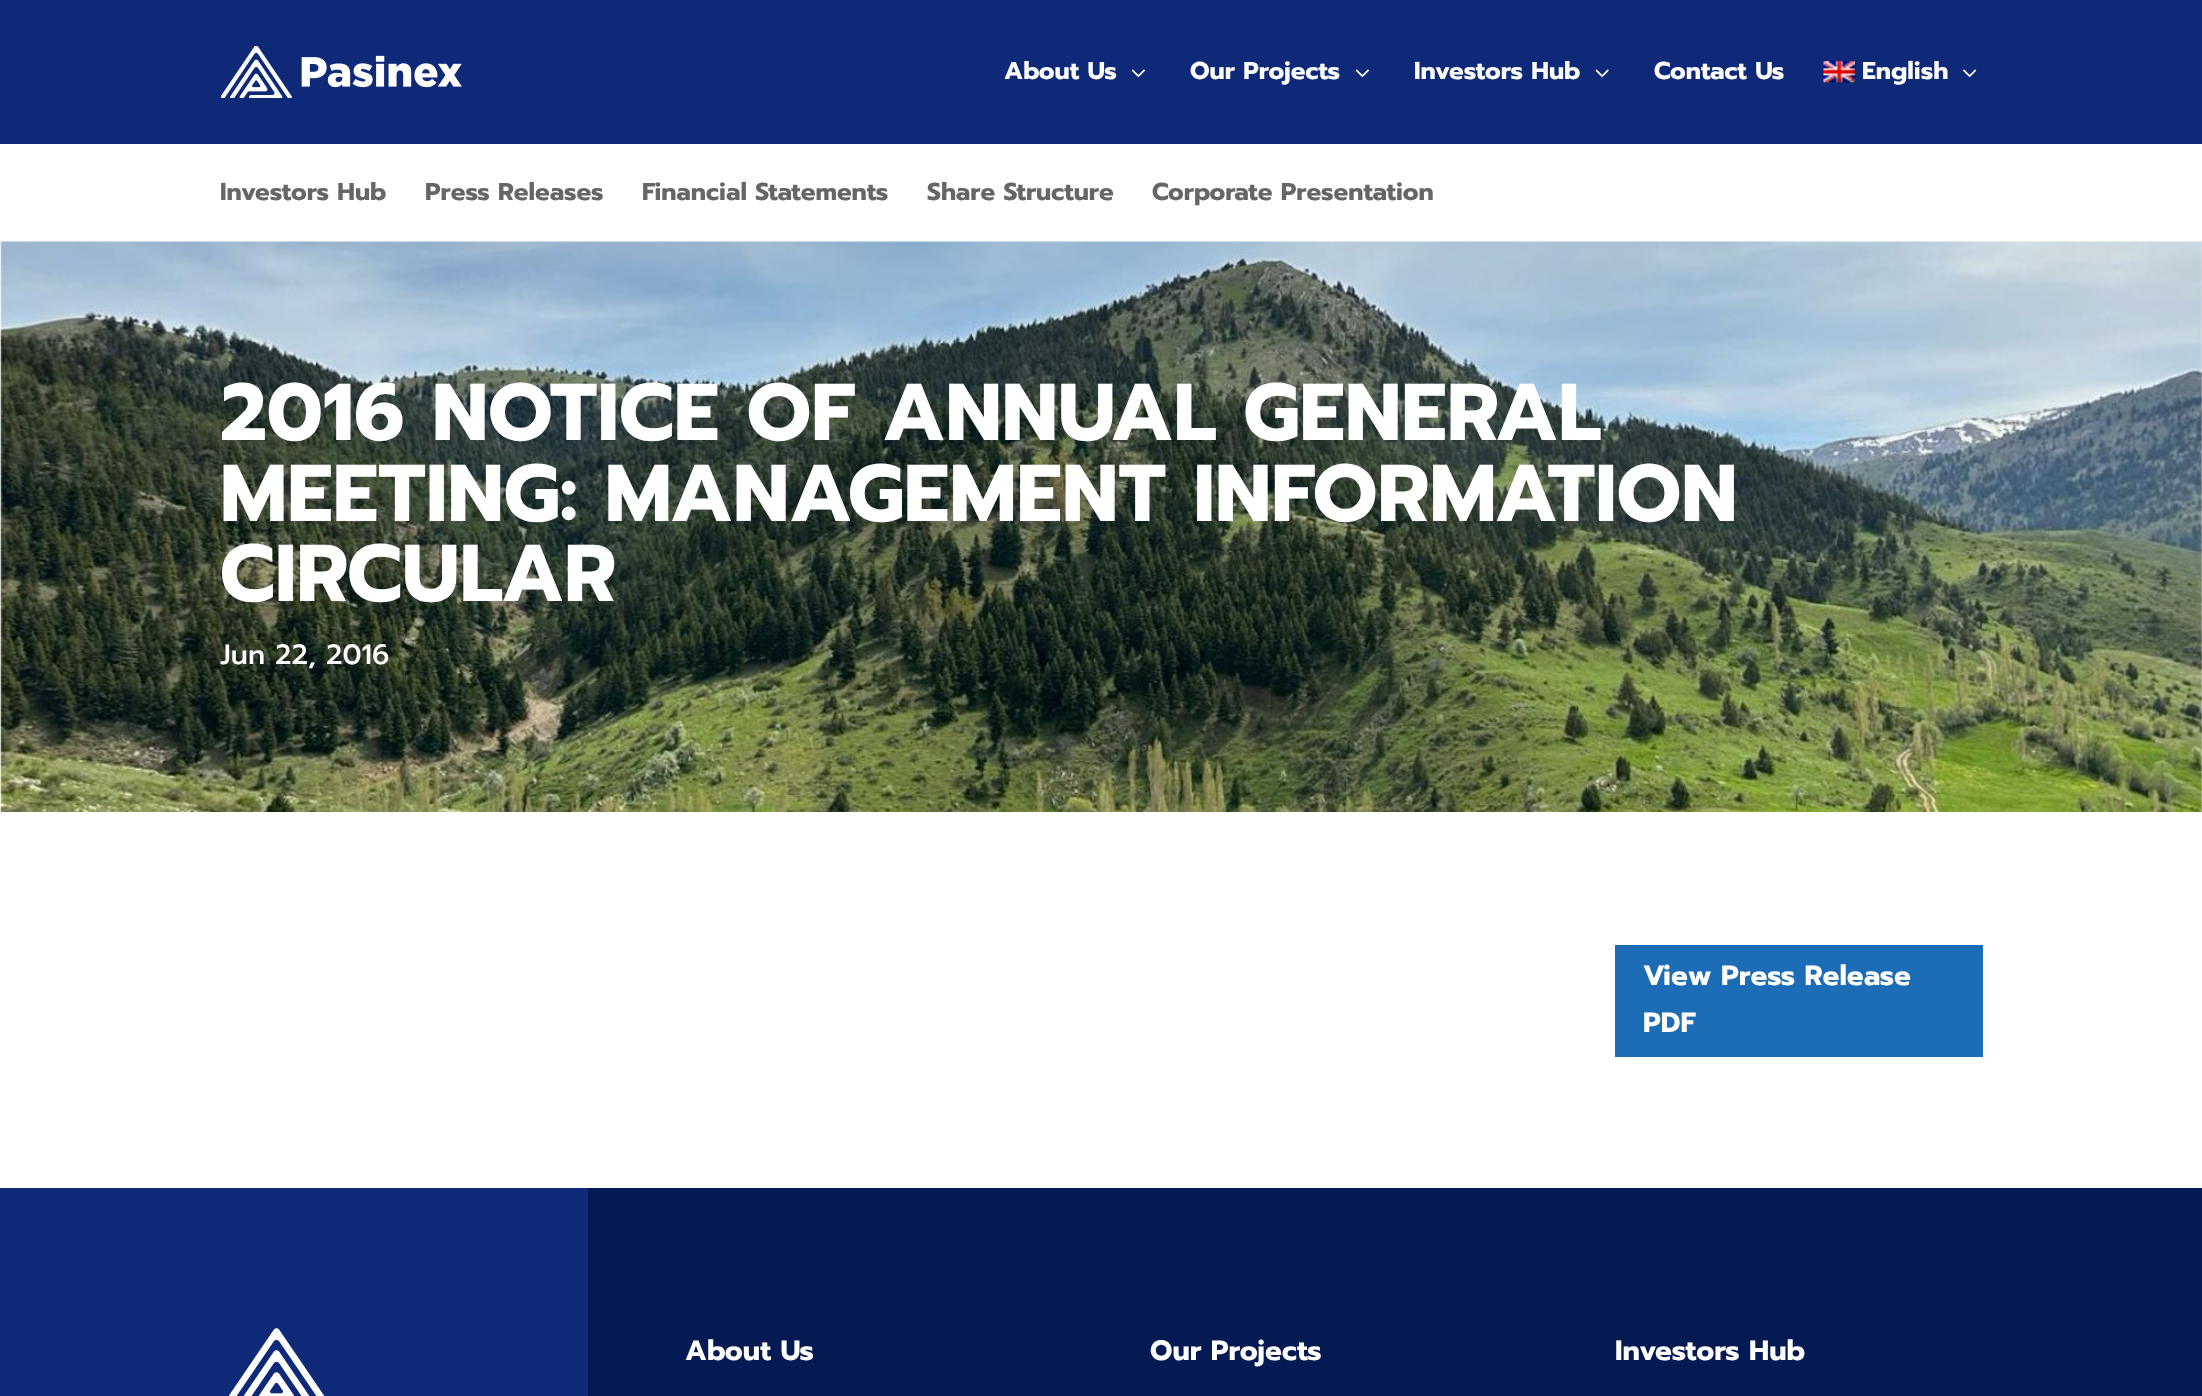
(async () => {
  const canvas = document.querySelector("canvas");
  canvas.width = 2202;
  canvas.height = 1396;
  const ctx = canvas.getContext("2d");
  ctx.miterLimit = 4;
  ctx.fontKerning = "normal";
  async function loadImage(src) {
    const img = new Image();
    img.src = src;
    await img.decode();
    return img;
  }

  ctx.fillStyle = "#ffffff";
  ctx.fillRect(0, 0, 2202, 1396);
  ctx.fillStyle = "#0e2977";
  ctx.fillRect(0, 0, 2202, 144);
  ctx.drawImage(await loadImage("img/1.png"), 221, 46, 241, 52);
  ctx.drawImage(await loadImage("img/2.png"), 1131, 69, 14, 8);
  ctx.drawImage(await loadImage("img/2.png"), 1355, 69, 14, 8);
  ctx.drawImage(await loadImage("img/3.png"), 1595, 69, 14, 8);
  ctx.drawImage(await loadImage("img/4.png"), 1823, 61, 32, 22);
  ctx.drawImage(await loadImage("img/5.png"), 1963, 69, 14, 8);
  ctx.drawImage(await loadImage("img/6.png"), 0, 241, 2202, 571);
  for (const [x, y, w, h, color] of [
    [1615, 945, 368, 112, "#1d6cb6"],
    [0, 1188, 588, 208, "#0e2977"],
    [588, 1188, 1614, 208, "#051952"],
  ]) {
    ctx.fillStyle = color;
    ctx.fillRect(x, y, w, h);
  }
  ctx.drawImage(await loadImage("img/7.png"), 228, 1328, 97, 68);
  ctx.font = "bold 24.5px Prompt";
  ctx.fillStyle = "#ffffff";
  for (const [text, x, y] of [
    ["About Us", 1004, 79],
    ["Our Projects", 1190, 79],
    ["Investors Hub", 1414, 79],
    ["Contact Us", 1654, 79],
    ["English", 1862, 79],
  ]) {
    ctx.fillText(text, x, y);
  }
  ctx.fillStyle = "#666666";
  for (const [text, x, y] of [
    ["Investors Hub", 220, 200],
    ["Press Releases", 425, 200],
    ["Financial Statements", 642, 200],
    ["Share Structure", 927, 200],
    ["Corporate Presentation", 1152, 200],
  ]) {
    ctx.fillText(text, x, y);
  }
  ctx.font = "bold 80.5px Prompt";
  ctx.fillStyle = "#ffffff";
  for (const [text, x, y] of [
    ["2016 NOTICE OF ANNUAL GENERAL", 220, 440],
    ["MEETING: MANAGEMENT INFORMATION", 220, 521],
    ["CIRCULAR", 220, 601],
  ]) {
    ctx.fillText(text, x, y);
  }
  ctx.font = "500 28px Prompt";
  ctx.fillText("Jun 22, 2016", 220, 664);
  ctx.font = "bold 28px Prompt";
  for (const [text, x, y] of [
    ["View Press Release", 1643, 985],
    ["PDF", 1643, 1032],
    ["About Us", 685, 1360],
    ["Our Projects", 1150, 1360],
    ["Investors Hub", 1615, 1360],
  ]) {
    ctx.fillText(text, x, y);
  }
})();
